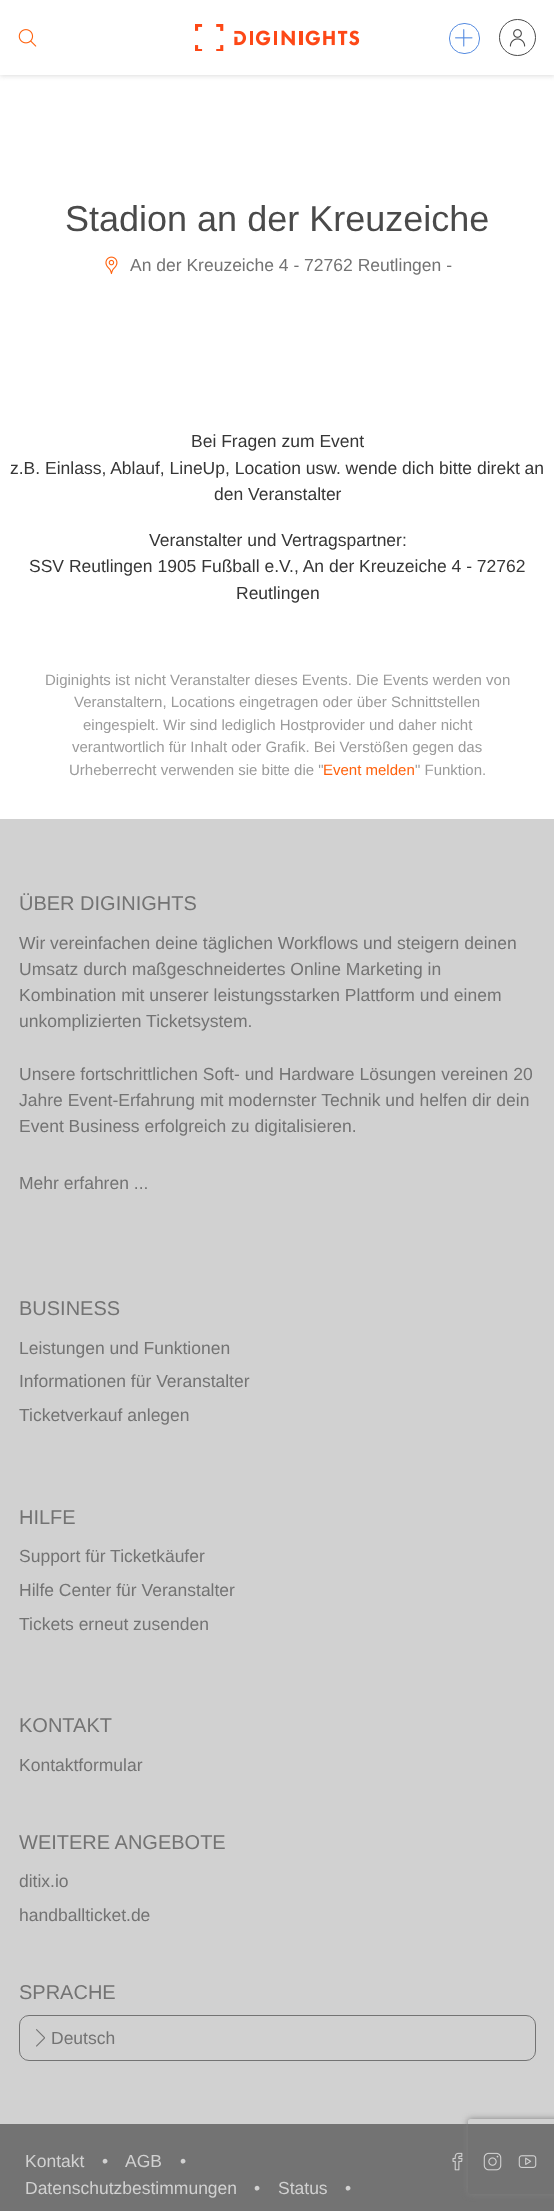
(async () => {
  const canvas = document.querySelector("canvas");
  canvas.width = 554;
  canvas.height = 2211;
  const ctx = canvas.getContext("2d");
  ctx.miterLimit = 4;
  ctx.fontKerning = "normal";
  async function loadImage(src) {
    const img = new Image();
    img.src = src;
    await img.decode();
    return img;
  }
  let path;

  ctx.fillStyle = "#ffffff";
  ctx.fillRect(0, 0, 554, 2211);
  ctx.save();
  ctx.beginPath();
  ctx.rect(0, 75, 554, 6);
  ctx.clip();
  ctx.fillStyle = "#dddddd";
  ctx.filter = "blur(2.5px)";
  ctx.beginPath();
  ctx.rect(0, 1, 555, 75);
  ctx.fill();
  ctx.filter = "none";
  ctx.restore();
  ctx.drawImage(await loadImage("img/1.png"), 18, 29, 19, 18);
  ctx.drawImage(await loadImage("img/2.png"), 195, 24, 165, 27);
  ctx.beginPath();
  ctx.roundRect(449.5, 23.5, 30, 30, 14.5);
  ctx.strokeStyle = "#568ce1";
  ctx.stroke();
  ctx.drawImage(await loadImage("img/3.png"), 455, 29, 18, 18);
  ctx.beginPath();
  ctx.arc(517.5, 37.5, 18, 0, Math.PI * 2);
  ctx.strokeStyle = "#4a4a4a";
  ctx.stroke();
  ctx.drawImage(await loadImage("img/4.png"), 509, 29, 17, 18);
  ctx.drawImage(await loadImage("img/5.png"), 105, 256, 13, 19);
  ctx.fillStyle = "#d1d1d1";
  ctx.fillRect(0, 819, 554, 1305);
  ctx.beginPath();
  ctx.roundRect(19.5, 2015.5, 516, 45, 9.5);
  ctx.strokeStyle = "#737373";
  ctx.stroke();
  ctx.drawImage(await loadImage("img/6.png"), 36, 2029, 9, 18);
  ctx.fillStyle = "#737373";
  ctx.fillRect(0, 2124, 554, 87);
  ctx.drawImage(await loadImage("img/7.png"), 452, 2152, 11, 19);
  ctx.drawImage(await loadImage("img/8.png"), 483, 2152, 19, 19);
  ctx.drawImage(await loadImage("img/9.png"), 518, 2155, 19, 13);
  ctx.save();
  path = new Path2D("M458 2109H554V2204H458ZM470.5 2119H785.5C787 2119 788 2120 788 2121.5V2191.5C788 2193 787 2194 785.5 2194H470.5C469 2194 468 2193 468 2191.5V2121.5C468 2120 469 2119 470.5 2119Z");
  ctx.clip(path, "evenodd");
  ctx.fillStyle = "#808080";
  ctx.filter = "blur(3px)";
  ctx.beginPath();
  ctx.roundRect(468, 2119, 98, 75, 2.5);
  ctx.fill();
  ctx.filter = "none";
  ctx.restore();
  ctx.font = "36px Liberation Sans";
  ctx.fillStyle = "#4a4a4a";
  ctx.fillText("Stadion an der Kreuzeiche", 65, 231);
  ctx.font = "17.5px Liberation Sans";
  ctx.fillStyle = "#737373";
  ctx.fillText("An der Kreuzeiche 4 - 72762 Reutlingen -", 130, 271);
  ctx.fillStyle = "#363636";
  for (const [text, x, y] of [
    ["Bei Fragen zum Event", 191, 447],
    ["z.B. Einlass, Ablauf, LineUp, Location usw. wende dich bitte direkt an", 10, 474],
    ["den Veranstalter", 214, 500],
    ["Veranstalter und Vertragspartner:", 149, 546],
    ["SSV Reutlingen 1905 Fußball e.V., An der Kreuzeiche 4 - 72762", 29, 572],
    ["Reutlingen", 236, 599],
  ]) {
    ctx.fillText(text, x, y);
  }
  ctx.font = "15px Liberation Sans";
  ctx.fillStyle = "#9b9b9b";
  for (const [text, x, y] of [
    ["Diginights ist nicht Veranstalter dieses Events. Die Events werden von", 45, 685],
    ["Veranstaltern, Locations eingetragen oder über Schnittstellen", 74, 707],
    ["eingespielt. Wir sind lediglich Hostprovider und daher nicht", 83, 730],
    ["verantwortlich für Inhalt oder Grafik. Bei Verstößen gegen das", 72, 752],
    ["Urheberrecht verwenden sie bitte die \"", 69, 775],
  ]) {
    ctx.fillText(text, x, y);
  }
  ctx.fillStyle = "#ff610c";
  ctx.fillText("Event melden", 323, 775);
  ctx.fillStyle = "#9b9b9b";
  ctx.fillText("\" Funktion.", 415, 775);
  ctx.font = "20px Liberation Sans";
  ctx.fillStyle = "#737373";
  ctx.fillText("ÜBER DIGINIGHTS", 19, 910);
  ctx.font = "17.5px Liberation Sans";
  for (const [text, x, y] of [
    ["Wir vereinfachen deine täglichen Workflows und steigern deinen", 19, 949],
    ["Umsatz durch maßgeschneidertes Online Marketing in", 19, 975],
    ["Kombination mit unserer leistungsstarken Plattform und einem", 19, 1001],
    ["unkomplizierten Ticketsystem.", 19, 1027],
    ["Unsere fortschrittlichen Soft- und Hardware Lösungen vereinen 20", 19, 1080],
    ["Jahre Event-Erfahrung mit modernster Technik und helfen dir dein", 19, 1106],
    ["Event Business erfolgreich zu digitalisieren.", 19, 1132],
    ["Mehr erfahren ...", 19, 1189],
  ]) {
    ctx.fillText(text, x, y);
  }
  ctx.font = "20px Liberation Sans";
  ctx.fillText("BUSINESS", 19, 1315);
  ctx.font = "17.5px Liberation Sans";
  for (const [text, x, y] of [
    ["Leistungen und Funktionen", 19, 1354],
    ["Informationen für Veranstalter", 19, 1387],
    ["Ticketverkauf anlegen", 19, 1421],
  ]) {
    ctx.fillText(text, x, y);
  }
  ctx.font = "20px Liberation Sans";
  ctx.fillText("HILFE", 19, 1524);
  ctx.font = "17.5px Liberation Sans";
  for (const [text, x, y] of [
    ["Support für Ticketkäufer", 19, 1562],
    ["Hilfe Center für Veranstalter", 19, 1596],
    ["Tickets erneut zusenden", 19, 1630],
  ]) {
    ctx.fillText(text, x, y);
  }
  ctx.font = "20px Liberation Sans";
  ctx.fillText("KONTAKT", 19, 1732);
  ctx.font = "17.5px Liberation Sans";
  ctx.fillText("Kontaktformular", 19, 1771);
  ctx.font = "20px Liberation Sans";
  ctx.fillText("WEITERE ANGEBOTE", 19, 1849);
  ctx.font = "17.5px Liberation Sans";
  ctx.fillText("ditix.io", 19, 1887);
  ctx.fillText("handballticket.de", 19, 1921);
  ctx.font = "20px Liberation Sans";
  ctx.fillText("SPRACHE", 19, 1999);
  ctx.font = "17.5px Liberation Sans";
  ctx.fillText("Deutsch", 51, 2044);
  ctx.fillStyle = "#d1d1d1";
  for (const [text, x, y] of [
    ["Kontakt", 25, 2167],
    ["•", 102, 2167],
    ["AGB", 125, 2167],
    ["•", 180, 2167],
    ["Datenschutzbestimmungen", 25, 2194],
    ["•", 254, 2194],
    ["Status", 278, 2194],
    ["•", 345, 2194],
  ]) {
    ctx.fillText(text, x, y);
  }
})();
